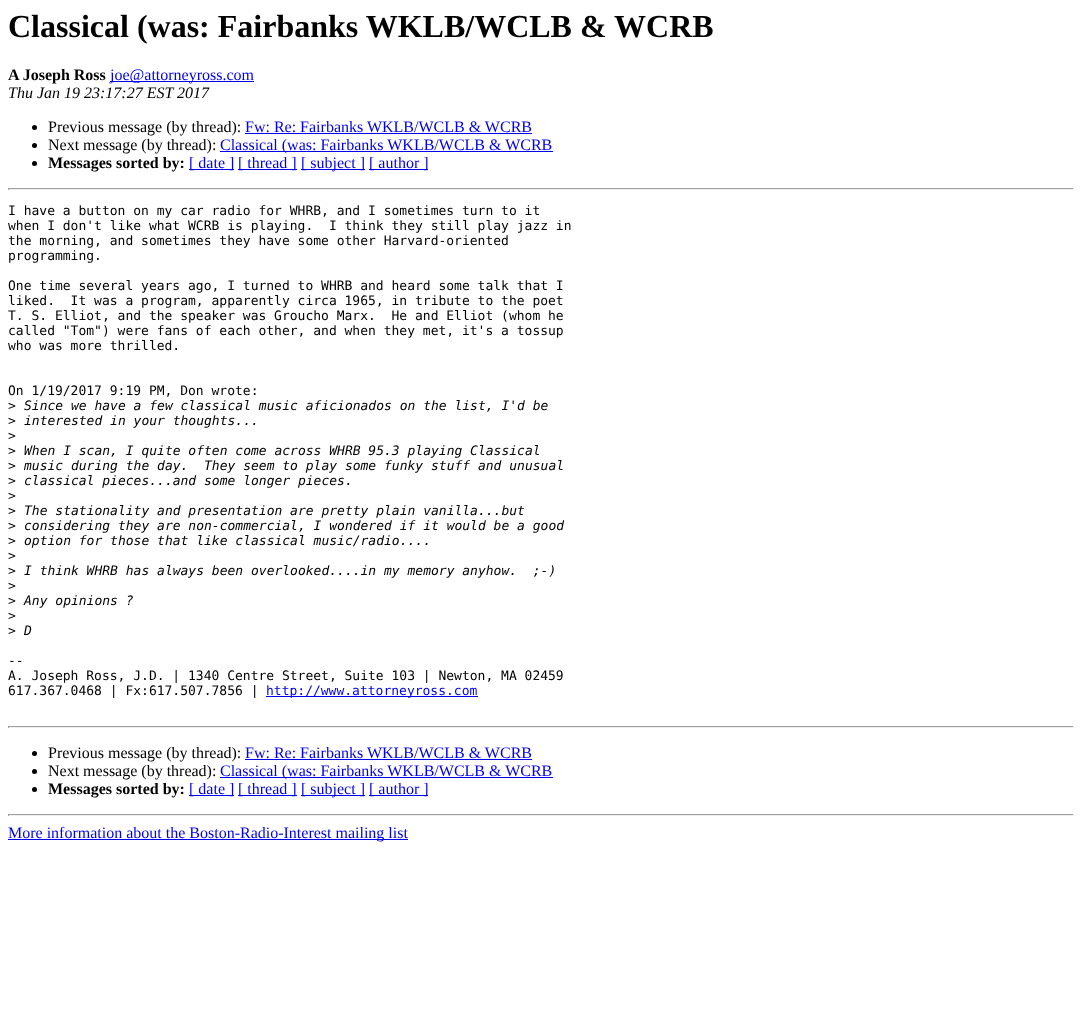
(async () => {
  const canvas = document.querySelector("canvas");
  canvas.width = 1082;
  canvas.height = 1026;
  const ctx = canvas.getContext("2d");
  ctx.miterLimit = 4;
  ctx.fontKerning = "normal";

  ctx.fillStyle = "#ffffff";
  ctx.fillRect(0, 0, 1082, 1026);
  ctx.fillStyle = "#0000ee";
  ctx.fillRect(110, 81, 144, 1);
  ctx.fillStyle = "#000000";
  ctx.beginPath();
  ctx.arc(34.5, 127.5, 2.5, 0, Math.PI * 2);
  ctx.fill();
  ctx.fillStyle = "#0000ee";
  ctx.fillRect(245, 133, 287, 1);
  ctx.fillStyle = "#000000";
  ctx.beginPath();
  ctx.arc(34.5, 145.5, 2.5, 0, Math.PI * 2);
  ctx.fill();
  ctx.fillStyle = "#0000ee";
  ctx.fillRect(220, 151, 333, 1);
  ctx.fillStyle = "#000000";
  ctx.beginPath();
  ctx.arc(34.5, 163.5, 2.5, 0, Math.PI * 2);
  ctx.fill();
  for (const [x, y, w, h, color] of [
    [189, 169, 45, 1, "#0000ee"],
    [238, 169, 59, 1, "#0000ee"],
    [301, 169, 64, 1, "#0000ee"],
    [369, 169, 59, 1, "#0000ee"],
    [8, 188, 1066, 1, "#9f9f9f"],
    [1073, 188, 1, 2, "#eeeeee"],
    [8, 189, 1066, 1, "#eeeeee"],
    [8, 188, 1, 2, "#9f9f9f"],
    [266, 696, 212, 1, "#0000ee"],
    [8, 726, 1066, 1, "#9f9f9f"],
    [1073, 726, 1, 2, "#eeeeee"],
    [8, 727, 1066, 1, "#eeeeee"],
    [8, 726, 1, 2, "#9f9f9f"],
  ]) {
    ctx.fillStyle = color;
    ctx.fillRect(x, y, w, h);
  }
  ctx.fillStyle = "#000000";
  ctx.beginPath();
  ctx.arc(34.5, 753.5, 2.5, 0, Math.PI * 2);
  ctx.fill();
  ctx.fillStyle = "#0000ee";
  ctx.fillRect(245, 759, 287, 1);
  ctx.fillStyle = "#000000";
  ctx.beginPath();
  ctx.arc(34.5, 771.5, 2.5, 0, Math.PI * 2);
  ctx.fill();
  ctx.fillStyle = "#0000ee";
  ctx.fillRect(220, 777, 333, 1);
  ctx.fillStyle = "#000000";
  ctx.beginPath();
  ctx.arc(34.5, 789.5, 2.5, 0, Math.PI * 2);
  ctx.fill();
  for (const [x, y, w, h, color] of [
    [189, 795, 45, 1, "#0000ee"],
    [238, 795, 59, 1, "#0000ee"],
    [301, 795, 64, 1, "#0000ee"],
    [369, 795, 59, 1, "#0000ee"],
    [8, 814, 1066, 1, "#9f9f9f"],
    [1073, 814, 1, 2, "#eeeeee"],
    [8, 815, 1066, 1, "#eeeeee"],
    [8, 814, 1, 2, "#9f9f9f"],
    [8, 839, 400, 1, "#0000ee"],
  ]) {
    ctx.fillStyle = color;
    ctx.fillRect(x, y, w, h);
  }
  ctx.font = "bold 32px Liberation Serif";
  ctx.fillStyle = "#000000";
  ctx.fillText("Classical (was: Fairbanks WKLB/WCLB & WCRB", 8, 37);
  ctx.font = "bold 16px Liberation Serif";
  ctx.fillText("A Joseph Ross", 8, 80);
  ctx.font = "16px Liberation Serif";
  ctx.fillStyle = "#0000ee";
  ctx.fillText("joe@attorneyross.com", 110, 80);
  ctx.font = "italic 16px Liberation Serif";
  ctx.fillStyle = "#000000";
  ctx.fillText("Thu Jan 19 23:17:27 EST 2017", 8, 98);
  ctx.font = "16px Liberation Serif";
  ctx.fillText("Previous message (by thread):", 48, 132);
  ctx.fillStyle = "#0000ee";
  ctx.fillText("Fw: Re: Fairbanks WKLB/WCLB & WCRB", 245, 132);
  ctx.fillStyle = "#000000";
  ctx.fillText("Next message (by thread):", 48, 150);
  ctx.fillStyle = "#0000ee";
  ctx.fillText("Classical (was: Fairbanks WKLB/WCLB & WCRB", 220, 150);
  ctx.font = "bold 16px Liberation Serif";
  ctx.fillStyle = "#000000";
  ctx.fillText("Messages sorted by:", 48, 168);
  ctx.font = "16px Liberation Serif";
  ctx.fillStyle = "#0000ee";
  for (const [text, x, y] of [
    ["[ date ]", 189, 168],
    ["[ thread ]", 238, 168],
    ["[ subject ]", 301, 168],
    ["[ author ]", 369, 168],
  ]) {
    ctx.fillText(text, x, y);
  }
  ctx.font = "13px DejaVu Sans Mono";
  ctx.fillStyle = "#000000";
  for (const [text, x, y] of [
    ["I have a button on my car radio for WHRB, and I sometimes turn to it", 8, 215],
    ["when I don't like what WCRB is playing.  I think they still play jazz in", 8, 230],
    ["the morning, and sometimes they have some other Harvard-oriented", 8, 245],
    ["programming.", 8, 260],
    ["One time several years ago, I turned to WHRB and heard some talk that I", 8, 290],
    ["liked.  It was a program, apparently circa 1965, in tribute to the poet", 8, 305],
    ["T. S. Elliot, and the speaker was Groucho Marx.  He and Elliot (whom he", 8, 320],
    ["called \"Tom\") were fans of each other, and when they met, it's a tossup", 8, 335],
    ["who was more thrilled.", 8, 350],
    ["On 1/19/2017 9:19 PM, Don wrote:", 8, 395],
    [">", 8, 410],
  ]) {
    ctx.fillText(text, x, y);
  }
  ctx.font = "italic 13px DejaVu Sans Mono";
  ctx.fillText("Since we have a few classical music aficionados on the list, I'd be", 24, 410);
  ctx.font = "13px DejaVu Sans Mono";
  ctx.fillText(">", 8, 425);
  ctx.font = "italic 13px DejaVu Sans Mono";
  ctx.fillText("interested in your thoughts...", 24, 425);
  ctx.font = "13px DejaVu Sans Mono";
  ctx.fillText(">", 8, 440);
  ctx.fillText(">", 8, 455);
  ctx.font = "italic 13px DejaVu Sans Mono";
  ctx.fillText("When I scan, I quite often come across WHRB 95.3 playing Classical", 24, 455);
  ctx.font = "13px DejaVu Sans Mono";
  ctx.fillText(">", 8, 470);
  ctx.font = "italic 13px DejaVu Sans Mono";
  ctx.fillText("music during the day.  They seem to play some funky stuff and unusual", 24, 470);
  ctx.font = "13px DejaVu Sans Mono";
  ctx.fillText(">", 8, 485);
  ctx.font = "italic 13px DejaVu Sans Mono";
  ctx.fillText("classical pieces...and some longer pieces.", 24, 485);
  ctx.font = "13px DejaVu Sans Mono";
  ctx.fillText(">", 8, 500);
  ctx.fillText(">", 8, 515);
  ctx.font = "italic 13px DejaVu Sans Mono";
  ctx.fillText("The stationality and presentation are pretty plain vanilla...but", 24, 515);
  ctx.font = "13px DejaVu Sans Mono";
  ctx.fillText(">", 8, 530);
  ctx.font = "italic 13px DejaVu Sans Mono";
  ctx.fillText("considering they are non-commercial, I wondered if it would be a good", 24, 530);
  ctx.font = "13px DejaVu Sans Mono";
  ctx.fillText(">", 8, 545);
  ctx.font = "italic 13px DejaVu Sans Mono";
  ctx.fillText("option for those that like classical music/radio....", 24, 545);
  ctx.font = "13px DejaVu Sans Mono";
  ctx.fillText(">", 8, 560);
  ctx.fillText(">", 8, 575);
  ctx.font = "italic 13px DejaVu Sans Mono";
  ctx.fillText("I think WHRB has always been overlooked....in my memory anyhow.  ;-)", 24, 575);
  ctx.font = "13px DejaVu Sans Mono";
  ctx.fillText(">", 8, 590);
  ctx.fillText(">", 8, 605);
  ctx.font = "italic 13px DejaVu Sans Mono";
  ctx.fillText("Any opinions ?", 24, 605);
  ctx.font = "13px DejaVu Sans Mono";
  ctx.fillText(">", 8, 620);
  ctx.fillText(">", 8, 635);
  ctx.font = "italic 13px DejaVu Sans Mono";
  ctx.fillText("D", 24, 635);
  ctx.font = "13px DejaVu Sans Mono";
  for (const [text, x, y] of [
    ["--", 8, 665],
    ["A. Joseph Ross, J.D. | 1340 Centre Street, Suite 103 | Newton, MA 02459", 8, 680],
    ["617.367.0468 | Fx:617.507.7856 |", 8, 695],
  ]) {
    ctx.fillText(text, x, y);
  }
  ctx.fillStyle = "#0000ee";
  ctx.fillText("http://www.attorneyross.com", 266, 695);
  ctx.font = "16px Liberation Serif";
  ctx.fillStyle = "#000000";
  ctx.fillText("Previous message (by thread):", 48, 758);
  ctx.fillStyle = "#0000ee";
  ctx.fillText("Fw: Re: Fairbanks WKLB/WCLB & WCRB", 245, 758);
  ctx.fillStyle = "#000000";
  ctx.fillText("Next message (by thread):", 48, 776);
  ctx.fillStyle = "#0000ee";
  ctx.fillText("Classical (was: Fairbanks WKLB/WCLB & WCRB", 220, 776);
  ctx.font = "bold 16px Liberation Serif";
  ctx.fillStyle = "#000000";
  ctx.fillText("Messages sorted by:", 48, 794);
  ctx.font = "16px Liberation Serif";
  ctx.fillStyle = "#0000ee";
  for (const [text, x, y] of [
    ["[ date ]", 189, 794],
    ["[ thread ]", 238, 794],
    ["[ subject ]", 301, 794],
    ["[ author ]", 369, 794],
    ["More information about the Boston-Radio-Interest mailing list", 8, 838],
  ]) {
    ctx.fillText(text, x, y);
  }
})();
